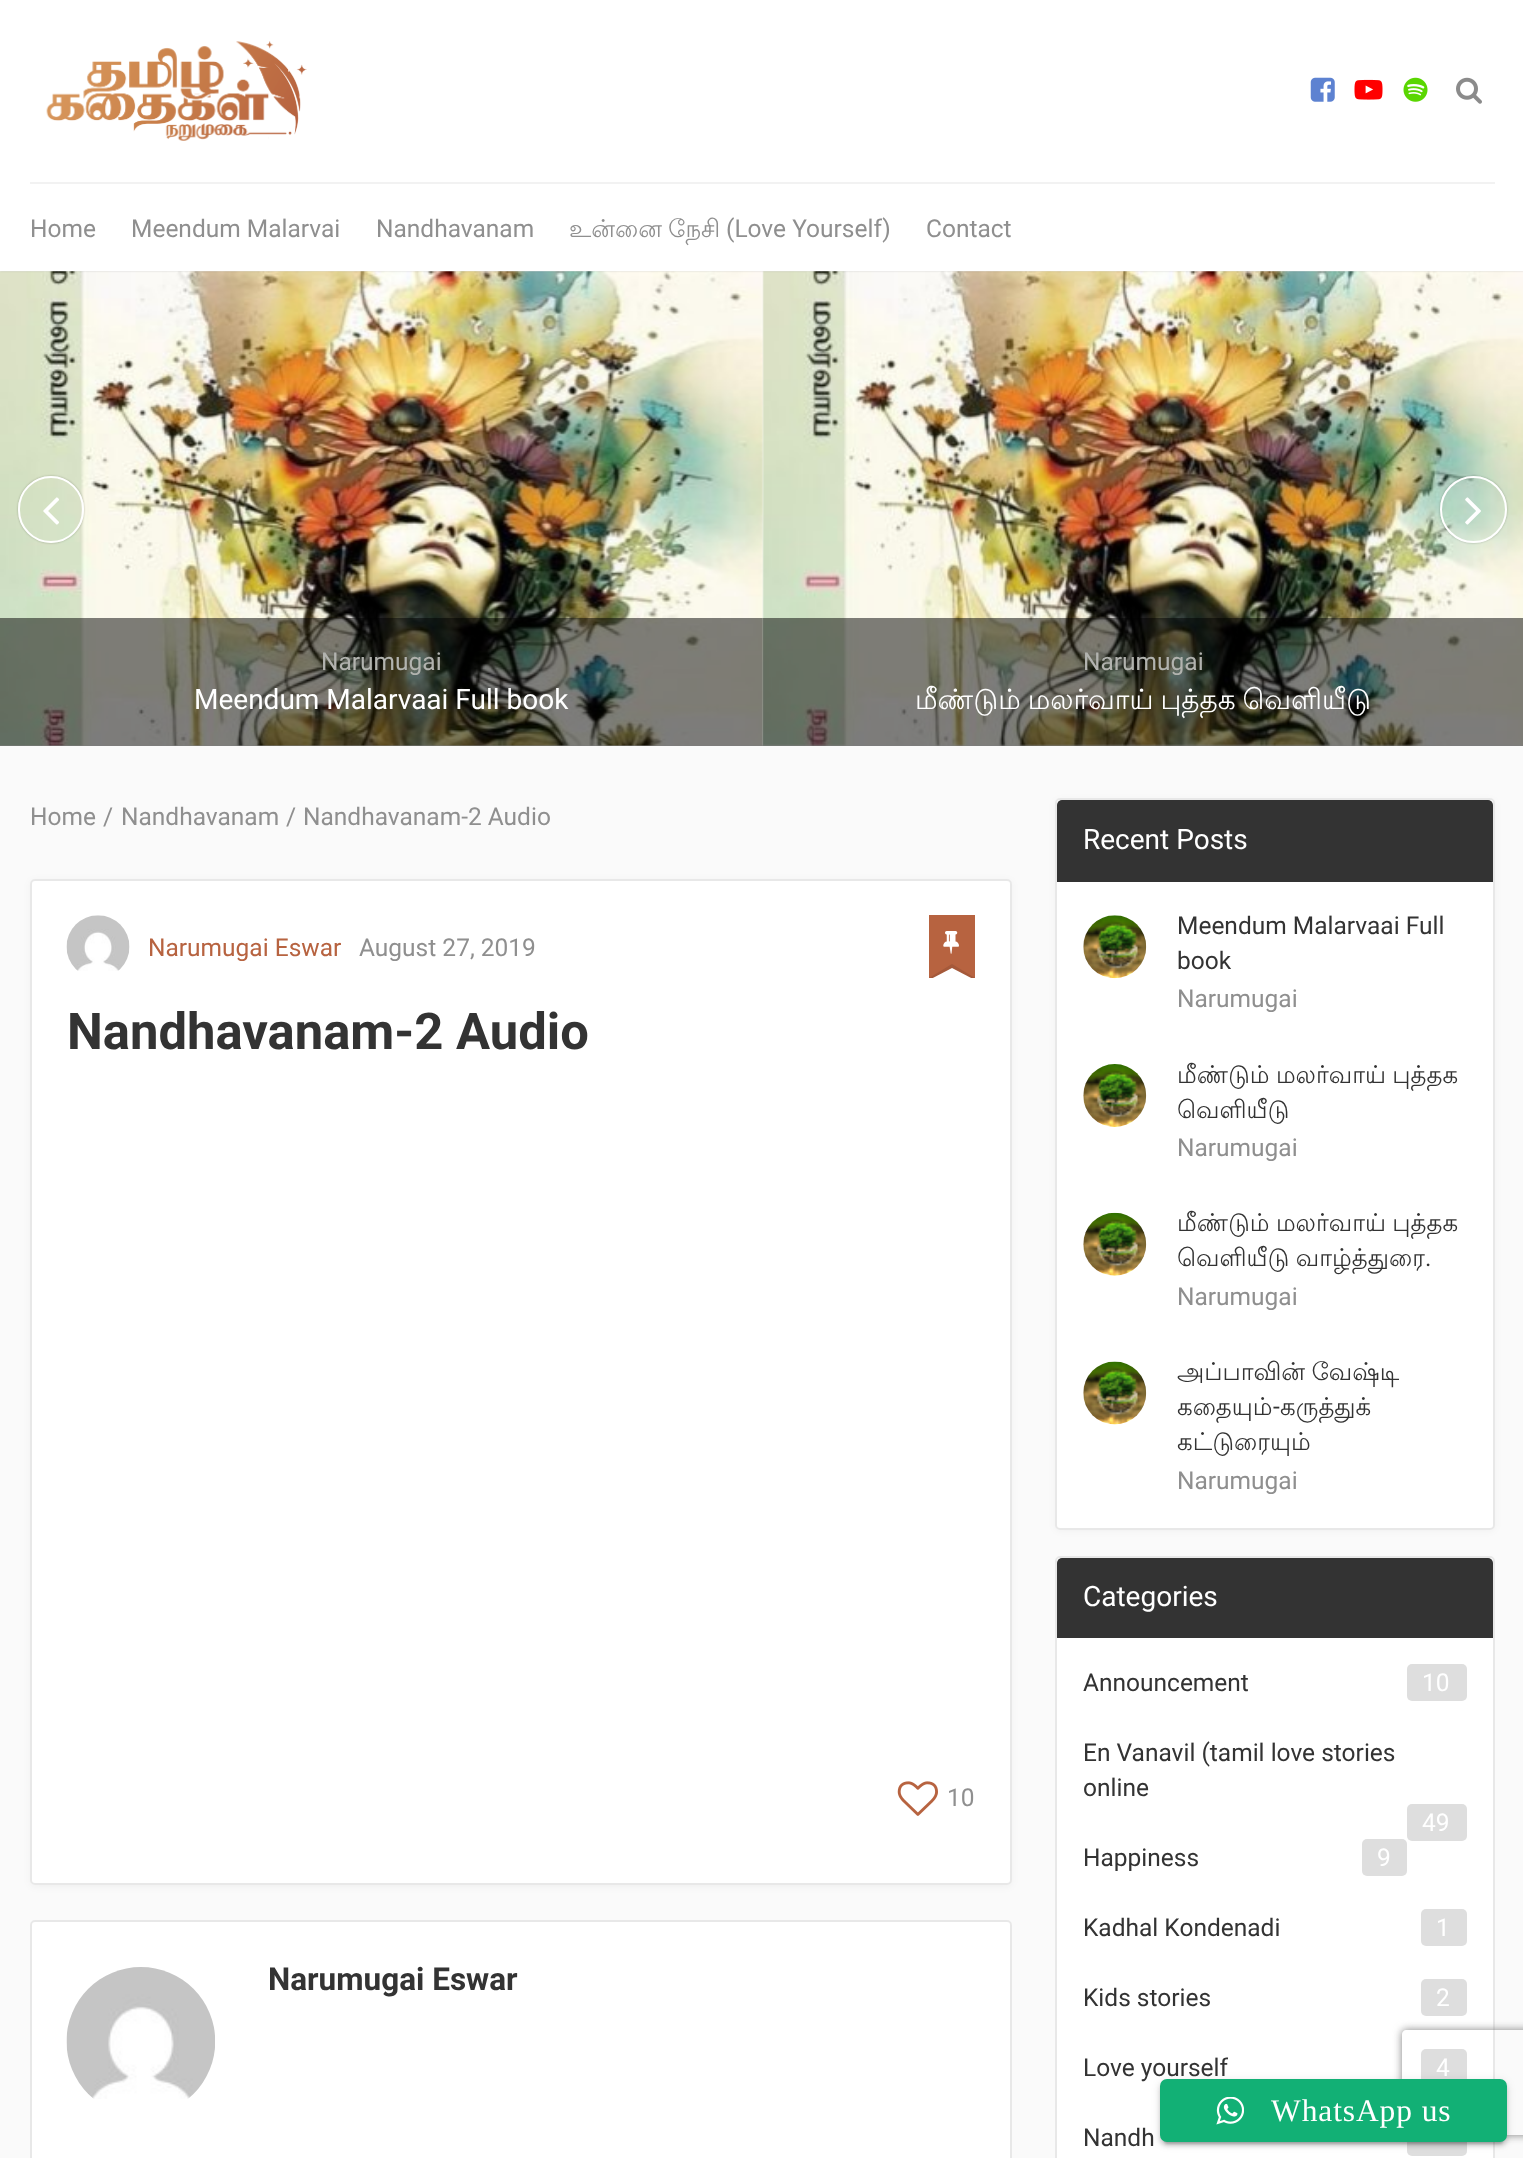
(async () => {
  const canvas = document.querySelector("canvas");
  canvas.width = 1523;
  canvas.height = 2158;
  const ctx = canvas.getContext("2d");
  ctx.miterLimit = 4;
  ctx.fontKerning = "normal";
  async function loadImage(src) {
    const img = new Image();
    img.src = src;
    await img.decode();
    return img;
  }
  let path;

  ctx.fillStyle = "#fafafa";
  ctx.fillRect(0, 0, 1523, 2158);
  ctx.drawImage(await loadImage("img/8.png"), 0, 271, 763, 475);
  ctx.fillStyle = "rgba(0, 0, 0, 0.5)";
  ctx.fillRect(0, 618, 763, 128);
  ctx.drawImage(await loadImage("img/9.png"), 762, 271, 761, 475);
  ctx.fillStyle = "rgba(0, 0, 0, 0.15)";
  ctx.filter = "blur(1px)";
  ctx.beginPath();
  ctx.rect(0, 184, 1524, 87);
  ctx.fill();
  ctx.filter = "none";
  ctx.fillStyle = "#ffffff";
  ctx.fillRect(0, 0, 1523, 271);
  ctx.fillStyle = "#f2f2f2";
  ctx.fillRect(30, 182, 1465, 2);
  ctx.drawImage(await loadImage("img/1.png"), 46, 41, 261, 100);
  ctx.drawImage(await loadImage("img/2.png"), 1310, 77, 25, 25);
  ctx.drawImage(await loadImage("img/3.png"), 1354, 79, 29, 21);
  ctx.drawImage(await loadImage("img/4.png"), 1403, 77, 25, 25);
  ctx.drawImage(await loadImage("img/5.png"), 1456, 77, 26, 27);
  ctx.save();
  path = new Path2D("M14 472H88V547H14ZM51 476C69 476 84 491 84 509V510C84 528 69 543 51 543C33 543 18 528 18 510V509C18 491 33 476 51 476Z");
  ctx.clip(path, "evenodd");
  ctx.fillStyle = "rgba(0, 0, 0, 0.25)";
  ctx.filter = "blur(1px)";
  ctx.beginPath();
  ctx.roundRect(18, 476, 66, 67, 33);
  ctx.fill();
  ctx.filter = "none";
  ctx.restore();
  ctx.beginPath();
  ctx.roundRect(19, 477, 64, 65, 32);
  ctx.strokeStyle = "#ffffff";
  ctx.lineWidth = 2;
  ctx.stroke();
  ctx.drawImage(await loadImage("img/6.png"), 43, 497, 16, 28);
  ctx.save();
  path = new Path2D("M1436 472H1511V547H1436ZM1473.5 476C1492 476 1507 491 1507 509.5C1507 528 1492 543 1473.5 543C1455 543 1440 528 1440 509.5C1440 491 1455 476 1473.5 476Z");
  ctx.clip(path, "evenodd");
  ctx.fillStyle = "rgba(0, 0, 0, 0.25)";
  ctx.filter = "blur(1px)";
  ctx.beginPath();
  ctx.roundRect(1440, 476, 67, 67, 33.5);
  ctx.fill();
  ctx.filter = "none";
  ctx.restore();
  ctx.beginPath();
  ctx.arc(1473.5, 509.5, 32.5, 0, Math.PI * 2);
  ctx.stroke();
  ctx.drawImage(await loadImage("img/7.png"), 1465, 497, 16, 28);
  ctx.fillStyle = "rgba(0, 0, 0, 0.5)";
  ctx.fillRect(763, 618, 760, 128);
  ctx.fillStyle = "rgba(0, 0, 0, 0.04)";
  ctx.filter = "blur(3.5px)";
  ctx.beginPath();
  ctx.roundRect(30, 880, 982, 1007, 5);
  ctx.fill();
  ctx.filter = "none";
  ctx.fillStyle = "#ffffff";
  ctx.beginPath();
  ctx.roundRect(30, 879, 982, 1006, 5);
  ctx.fill();
  ctx.beginPath();
  ctx.roundRect(31, 880, 980, 1004, 4);
  ctx.strokeStyle = "rgba(0, 0, 0, 0.09)";
  ctx.stroke();
  ctx.drawImage(await loadImage("img/10.png"), 66, 915, 64, 56);
  ctx.fillStyle = "#b76340";
  ctx.fillRect(929, 915, 46, 63);
  ctx.drawImage(await loadImage("img/11.png"), 943, 931, 16, 23);
  ctx.fillStyle = "#a5593a";
  path = new Path2D("M975 978H929L952 964Z");
  ctx.fill(path);
  ctx.fillStyle = "#ffffff";
  path = new Path2D("M975 980H929L952 968Z");
  ctx.fill(path);
  ctx.drawImage(await loadImage("img/12.png"), 897, 1781, 41, 35);
  ctx.beginPath();
  ctx.roundRect(30, 1920, 982, 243, 5);
  ctx.fill();
  ctx.beginPath();
  ctx.roundRect(31, 1921, 980, 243, 4);
  ctx.stroke();
  ctx.drawImage(await loadImage("img/13.png"), 66, 1967, 149, 132);
  ctx.fillStyle = "rgba(0, 0, 0, 0.04)";
  ctx.filter = "blur(3.5px)";
  ctx.beginPath();
  ctx.roundRect(1055, 800, 440, 731, 5);
  ctx.fill();
  ctx.filter = "none";
  ctx.fillStyle = "#ffffff";
  ctx.beginPath();
  ctx.roundRect(1055, 798, 440, 732, 5);
  ctx.fill();
  ctx.beginPath();
  ctx.roundRect(1056, 799, 438, 730, 4);
  ctx.stroke();
  ctx.save();
  ctx.beginPath();
  ctx.roundRect(1057, 800, 436, 728, 4);
  ctx.clip();
  ctx.fillStyle = "#333333";
  ctx.beginPath();
  ctx.roundRect(1057, 800, 436, 82, [5, 5, 0, 0]);
  ctx.fill();
  ctx.restore();
  ctx.drawImage(await loadImage("img/14.png"), 1083, 915, 64, 64);
  ctx.drawImage(await loadImage("img/15.png"), 1083, 1064, 64, 63);
  ctx.drawImage(await loadImage("img/16.png"), 1083, 1212, 64, 64);
  ctx.drawImage(await loadImage("img/17.png"), 1083, 1361, 64, 64);
  ctx.beginPath();
  ctx.roundRect(1055, 1556, 440, 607, 5);
  ctx.fill();
  ctx.beginPath();
  ctx.roundRect(1056, 1557, 438, 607, 4);
  ctx.stroke();
  ctx.save();
  ctx.beginPath();
  ctx.roundRect(1057, 1558, 436, 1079, 4);
  ctx.clip();
  ctx.fillStyle = "#333333";
  ctx.beginPath();
  ctx.roundRect(1057, 1558, 436, 80, [5, 5, 0, 0]);
  ctx.fill();
  ctx.restore();
  ctx.fillStyle = "#dedede";
  ctx.beginPath();
  ctx.roundRect(1407, 1664, 60, 37, 5);
  ctx.fill();
  ctx.beginPath();
  ctx.roundRect(1407, 1804, 60, 37, 5);
  ctx.fill();
  ctx.beginPath();
  ctx.roundRect(1362, 1839, 45, 37, 5);
  ctx.fill();
  ctx.beginPath();
  ctx.roundRect(1421, 1909, 46, 37, 5);
  ctx.fill();
  ctx.beginPath();
  ctx.roundRect(1421, 1979, 46, 37, 5);
  ctx.fill();
  ctx.beginPath();
  ctx.roundRect(1421, 2049, 46, 37, 5);
  ctx.fill();
  ctx.beginPath();
  ctx.roundRect(1407, 2119, 60, 37, 5);
  ctx.fill();
  ctx.fillStyle = "rgba(0, 0, 0, 0.2)";
  ctx.filter = "blur(1px)";
  ctx.beginPath();
  ctx.roundRect(1164, 2088, 339, 56, 4);
  ctx.fill();
  ctx.filter = "none";
  ctx.fillStyle = "rgba(0, 0, 0, 0.12)";
  ctx.filter = "blur(4.5px)";
  ctx.beginPath();
  ctx.roundRect(1160, 2081, 347, 63, 7);
  ctx.fill();
  ctx.filter = "none";
  ctx.fillStyle = "rgba(0, 0, 0, 0.14)";
  ctx.filter = "blur(2px)";
  ctx.beginPath();
  ctx.roundRect(1160, 2083, 347, 63, 7);
  ctx.fill();
  ctx.filter = "none";
  ctx.save();
  path = new Path2D("M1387 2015H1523V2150H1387ZM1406 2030H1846C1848 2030 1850 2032 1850 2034V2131C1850 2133 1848 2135 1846 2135H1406C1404 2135 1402 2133 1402 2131V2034C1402 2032 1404 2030 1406 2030Z");
  ctx.clip(path, "evenodd");
  ctx.fillStyle = "#808080";
  ctx.filter = "blur(4.5px)";
  ctx.beginPath();
  ctx.roundRect(1402, 2030, 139, 105, 4);
  ctx.fill();
  ctx.filter = "none";
  ctx.restore();
  ctx.font = "24.5px Roboto";
  ctx.fillStyle = "#8f8f8f";
  for (const [text, x, y] of [
    ["Home", 30, 237],
    ["Meendum Malarvai", 131, 237],
    ["Nandhavanam", 376, 237],
  ]) {
    ctx.fillText(text, x, y);
  }
  ctx.font = "24.5px Lohit Tamil";
  ctx.fillText("உன்னை", 569, 237);
  ctx.fillText("நேசி", 668, 237);
  ctx.font = "24.5px Roboto";
  ctx.fillText("(Love Yourself)", 726, 237);
  ctx.fillText("Contact", 926, 237);
  ctx.fillStyle = "#b2b3af";
  ctx.fillText("Narumugai", 321, 670);
  ctx.font = "28px Roboto";
  ctx.fillStyle = "#ffffff";
  ctx.fillText("Meendum Malarvaai Full book", 194, 709);
  ctx.font = "24.5px Roboto";
  ctx.fillStyle = "#b2b3af";
  ctx.fillText("Narumugai", 1083, 670);
  ctx.wordSpacing = "-1.5px";
  ctx.font = "28px Lohit Tamil";
  ctx.fillStyle = "#ffffff";
  ctx.fillText("மீண்டும் மலர்வாய் புத்தக வெளியீடு", 915, 709);
  ctx.wordSpacing = "0px";
  ctx.font = "24.5px Roboto";
  ctx.fillStyle = "#8f8f8f";
  for (const [text, x, y] of [
    ["Home", 30, 825],
    ["/", 103, 825],
    ["Nandhavanam", 121, 825],
    ["/", 286, 825],
    ["Nandhavanam-2 Audio", 303, 825],
  ]) {
    ctx.fillText(text, x, y);
  }
  ctx.fillStyle = "#b76340";
  ctx.fillText("Narumugai Eswar", 148, 956);
  ctx.fillStyle = "#8f8f8f";
  ctx.fillText("August 27, 2019", 359, 956);
  ctx.font = "bold 50.75px Roboto";
  ctx.fillStyle = "#333333";
  ctx.fillText("Nandhavanam-2 Audio", 67, 1049);
  ctx.font = "24.5px Roboto";
  ctx.fillStyle = "#8f8f8f";
  ctx.fillText("10", 947, 1806);
  ctx.font = "bold 31.5px Roboto";
  ctx.fillStyle = "#333333";
  ctx.fillText("Narumugai Eswar", 268, 1990);
  ctx.font = "28px Roboto";
  ctx.fillStyle = "#ffffff";
  ctx.fillText("Recent Posts", 1083, 849);
  ctx.font = "24.5px Roboto";
  ctx.fillStyle = "#333333";
  ctx.fillText("Meendum Malarvaai Full", 1177, 934);
  ctx.fillText("book", 1177, 969);
  ctx.fillStyle = "#8f8f8f";
  ctx.fillText("Narumugai", 1177, 1007);
  ctx.wordSpacing = "-1px";
  ctx.font = "24.5px Lohit Tamil";
  ctx.fillStyle = "#333333";
  ctx.fillText("மீண்டும் மலர்வாய் புத்தக", 1177, 1083);
  ctx.wordSpacing = "0px";
  ctx.fillText("வெளியீடு", 1177, 1118);
  ctx.font = "24.5px Roboto";
  ctx.fillStyle = "#8f8f8f";
  ctx.fillText("Narumugai", 1177, 1156);
  ctx.wordSpacing = "-1px";
  ctx.font = "24.5px Lohit Tamil";
  ctx.fillStyle = "#333333";
  ctx.fillText("மீண்டும் மலர்வாய் புத்தக", 1177, 1231);
  ctx.fillText("வெளியீடு வாழ்த்துரை", 1177, 1266);
  ctx.wordSpacing = "0px";
  ctx.font = "24.5px Roboto";
  ctx.fillText(".", 1425, 1266);
  ctx.fillStyle = "#8f8f8f";
  ctx.fillText("Narumugai", 1177, 1305);
  ctx.wordSpacing = "-1px";
  ctx.font = "24.5px Lohit Tamil";
  ctx.fillStyle = "#333333";
  ctx.fillText("அப்பாவின் வேஷ்டி", 1177, 1380);
  ctx.wordSpacing = "0px";
  ctx.fillText("கதையும்", 1177, 1415);
  ctx.font = "24.5px Roboto";
  ctx.fillText("-", 1273, 1415);
  ctx.font = "24.5px Lohit Tamil";
  ctx.fillText("கருத்துக்", 1280, 1415);
  ctx.fillText("கட்டுரையும்", 1177, 1450);
  ctx.font = "24.5px Roboto";
  ctx.fillStyle = "#8f8f8f";
  ctx.fillText("Narumugai", 1177, 1489);
  ctx.font = "28px Roboto";
  ctx.fillStyle = "#ffffff";
  ctx.fillText("Categories", 1083, 1606);
  ctx.font = "24.5px Roboto";
  ctx.fillStyle = "#333333";
  ctx.fillText("Announcement", 1083, 1691);
  ctx.fillStyle = "#ffffff";
  ctx.fillText("10", 1422, 1691);
  ctx.fillStyle = "#333333";
  ctx.fillText("En Vanavil (tamil love stories", 1083, 1761);
  ctx.fillText("online", 1083, 1796);
  ctx.fillStyle = "#ffffff";
  ctx.fillText("49", 1422, 1831);
  ctx.fillStyle = "#333333";
  ctx.fillText("Happiness", 1083, 1866);
  ctx.fillStyle = "#ffffff";
  ctx.fillText("9", 1377, 1866);
  ctx.fillStyle = "#333333";
  ctx.fillText("Kadhal Kondenadi", 1083, 1936);
  ctx.fillStyle = "#ffffff";
  ctx.fillText("1", 1436, 1936);
  ctx.fillStyle = "#333333";
  ctx.fillText("Kids stories", 1083, 2006);
  ctx.fillStyle = "#ffffff";
  ctx.fillText("2", 1436, 2006);
  ctx.fillStyle = "#333333";
  ctx.fillText("Love yourself", 1083, 2076);
  ctx.fillStyle = "#ffffff";
  ctx.fillText("4", 1436, 2076);
  ctx.fillStyle = "#333333";
  ctx.fillText("Nandh", 1083, 2146);
  ctx.fillStyle = "#12b075";
  ctx.beginPath();
  ctx.roundRect(1160, 2079, 347, 63, 7);
  ctx.fill();
  ctx.drawImage(await loadImage("img/18.png"), 1216, 2097, 28, 28);
  ctx.letterSpacing = "0.9px";
  ctx.font = "31.5px Liberation Serif";
  ctx.fillStyle = "#ffffff";
  ctx.fillText("WhatsApp us", 1271, 2121);
})();
